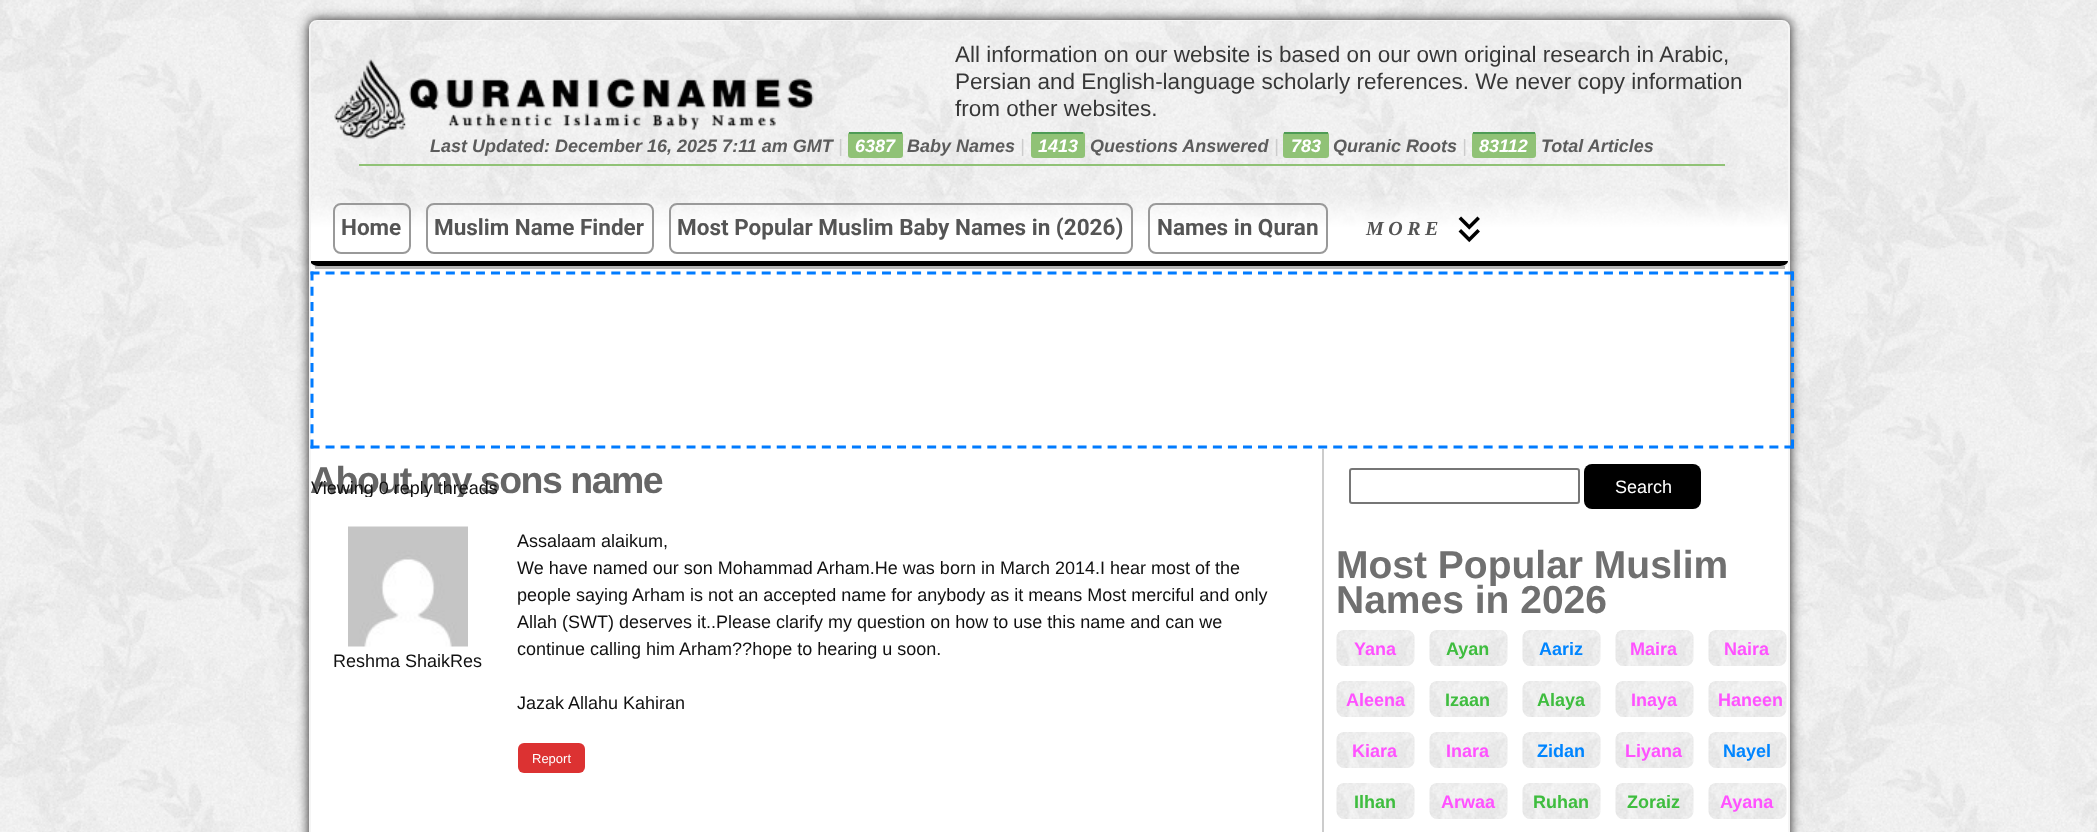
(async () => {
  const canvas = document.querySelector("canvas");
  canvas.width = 2097;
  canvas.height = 832;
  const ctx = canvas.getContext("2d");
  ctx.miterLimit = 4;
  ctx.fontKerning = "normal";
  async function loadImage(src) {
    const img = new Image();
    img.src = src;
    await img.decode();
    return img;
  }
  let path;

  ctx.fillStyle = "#ffffff";
  ctx.fillRect(0, 0, 2097, 832);
  ctx.drawImage(await loadImage("img/1.png"), 0, 0, 2097, 832);
  ctx.fillStyle = "#1b1a1a";
  ctx.filter = "blur(6px)";
  ctx.beginPath();
  ctx.roundRect(309, 20, 1481, 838, 8);
  ctx.fill();
  ctx.filter = "none";
  ctx.fillStyle = "#ffffff";
  ctx.beginPath();
  ctx.roundRect(310, 21, 1479, 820, 7);
  ctx.fill();
  ctx.strokeStyle = "#f5f5f5";
  ctx.lineWidth = 2;
  ctx.stroke();
  ctx.drawImage(await loadImage("img/2.png"), 310, 21, 1478, 247);
  ctx.fillStyle = "#b6b6b6";
  ctx.fillRect(315, 266, 1470, 3);
  ctx.fillStyle = "#90c276";
  ctx.fillRect(359, 164, 1366, 2);
  ctx.beginPath();
  ctx.roundRect(848, 132, 55, 26, 3);
  ctx.fill();
  ctx.fillStyle = "#4e9b55";
  ctx.fillRect(849, 132, 53, 2);
  ctx.fillStyle = "#90c276";
  ctx.beginPath();
  ctx.roundRect(1031, 132, 54, 26, 3);
  ctx.fill();
  ctx.fillStyle = "#4e9b55";
  ctx.fillRect(1032, 132, 51, 2);
  ctx.fillStyle = "#90c276";
  ctx.beginPath();
  ctx.roundRect(1283, 132, 46, 26, 3);
  ctx.fill();
  ctx.fillStyle = "#4e9b55";
  ctx.fillRect(1284, 132, 44, 2);
  ctx.fillStyle = "#90c276";
  ctx.beginPath();
  ctx.roundRect(1472, 132, 64, 26, 3);
  ctx.fill();
  ctx.fillStyle = "#4e9b55";
  ctx.fillRect(1473, 132, 62, 2);
  ctx.fillStyle = "#000000";
  path = new Path2D("M311 261H1788C1788 263 1785 266 1780 266H318C315 266 312 264 311 263Z");
  ctx.fill(path);
  ctx.beginPath();
  ctx.roundRect(334, 204, 76, 49, 7);
  ctx.strokeStyle = "#999999";
  ctx.stroke();
  ctx.beginPath();
  ctx.roundRect(427, 204, 226, 49, 7);
  ctx.stroke();
  ctx.beginPath();
  ctx.roundRect(670, 204, 462, 49, 7);
  ctx.stroke();
  ctx.beginPath();
  ctx.roundRect(1149, 204, 178, 49, 7);
  ctx.stroke();
  ctx.drawImage(await loadImage("img/4.png"), 1458, 216, 22, 27);
  path = new Path2D("M310.5 273H1794");
  ctx.strokeStyle = "#007bff";
  ctx.lineWidth = 3;
  ctx.setLineDash([9, 6.04]);
  ctx.stroke(path);
  path = new Path2D("M1792.5 271.5V448.5");
  ctx.setLineDash([9, 6.27]);
  ctx.stroke(path);
  path = new Path2D("M310.5 447H1794");
  ctx.setLineDash([9, 6.04]);
  ctx.stroke(path);
  path = new Path2D("M312 271.5V448.5");
  ctx.setLineDash([9, 6.27]);
  ctx.stroke(path);
  ctx.drawImage(await loadImage("img/5.png"), 348, 526, 120, 121);
  ctx.fillStyle = "#dc3232";
  ctx.beginPath();
  ctx.roundRect(518, 743, 67, 30, 6);
  ctx.fill();
  ctx.fillStyle = "#cccccc";
  ctx.fillRect(1322, 449, 2, 383);
  ctx.beginPath();
  ctx.roundRect(1350, 469, 229, 34, 2);
  ctx.strokeStyle = "#767676";
  ctx.lineWidth = 2;
  ctx.setLineDash([]);
  ctx.stroke();
  ctx.fillStyle = "#000000";
  ctx.beginPath();
  ctx.roundRect(1584, 464, 117, 45, 8);
  ctx.fill();
  ctx.drawImage(await loadImage("img/6.png"), 1336, 630, 79, 36);
  ctx.drawImage(await loadImage("img/7.png"), 1429, 630, 79, 36);
  ctx.drawImage(await loadImage("img/8.png"), 1522, 630, 79, 36);
  ctx.drawImage(await loadImage("img/9.png"), 1615, 630, 79, 36);
  ctx.drawImage(await loadImage("img/10.png"), 1708, 630, 79, 36);
  ctx.drawImage(await loadImage("img/6.png"), 1336, 681, 79, 36);
  ctx.drawImage(await loadImage("img/7.png"), 1429, 681, 79, 36);
  ctx.drawImage(await loadImage("img/8.png"), 1522, 681, 79, 36);
  ctx.drawImage(await loadImage("img/9.png"), 1615, 681, 79, 36);
  ctx.drawImage(await loadImage("img/10.png"), 1708, 681, 79, 36);
  ctx.drawImage(await loadImage("img/11.png"), 1336, 732, 79, 36);
  ctx.drawImage(await loadImage("img/12.png"), 1429, 732, 79, 36);
  ctx.drawImage(await loadImage("img/13.png"), 1522, 732, 79, 36);
  ctx.drawImage(await loadImage("img/14.png"), 1615, 732, 79, 36);
  ctx.drawImage(await loadImage("img/14.png"), 1708, 732, 79, 36);
  ctx.drawImage(await loadImage("img/6.png"), 1336, 783, 79, 36);
  ctx.drawImage(await loadImage("img/7.png"), 1429, 783, 79, 36);
  ctx.drawImage(await loadImage("img/8.png"), 1522, 783, 79, 36);
  ctx.drawImage(await loadImage("img/9.png"), 1615, 783, 79, 36);
  ctx.drawImage(await loadImage("img/10.png"), 1708, 783, 79, 36);
  ctx.font = "22.5px Liberation Sans";
  ctx.fillStyle = "#373737";
  for (const [text, x, y] of [
    ["All information on our website is based on our own original research in Arabic,", 955, 62],
    ["Persian and English-language scholarly references. We never copy information", 955, 89],
    ["from other websites.", 955, 116],
  ]) {
    ctx.fillText(text, x, y);
  }
  ctx.font = "italic bold 18px Liberation Sans";
  ctx.fillStyle = "#5c5c5c";
  ctx.fillText("Last Updated: December 16, 2025 7:11 am GMT", 430, 152);
  ctx.drawImage(await loadImage("img/3.png"), 334, 59, 480, 80);
  ctx.font = "italic 18px Liberation Sans";
  ctx.fillStyle = "#cccccc";
  ctx.fillText("|", 838, 152);
  ctx.font = "italic bold 18px Liberation Sans";
  ctx.fillStyle = "#ffffff";
  ctx.fillText("6387", 855, 152);
  ctx.fillStyle = "#5c5c5c";
  ctx.fillText("Baby Names", 907, 152);
  ctx.font = "italic 18px Liberation Sans";
  ctx.fillStyle = "#cccccc";
  ctx.fillText("|", 1020, 152);
  ctx.font = "italic bold 18px Liberation Sans";
  ctx.fillStyle = "#ffffff";
  ctx.fillText("1413", 1038, 152);
  ctx.fillStyle = "#5c5c5c";
  ctx.fillText("Questions Answered", 1090, 152);
  ctx.font = "italic 18px Liberation Sans";
  ctx.fillStyle = "#cccccc";
  ctx.fillText("|", 1274, 152);
  ctx.font = "italic bold 18px Liberation Sans";
  ctx.fillStyle = "#ffffff";
  ctx.fillText("783", 1291, 152);
  ctx.fillStyle = "#5c5c5c";
  ctx.fillText("Quranic Roots", 1333, 152);
  ctx.font = "italic 18px Liberation Sans";
  ctx.fillStyle = "#cccccc";
  ctx.fillText("|", 1462, 152);
  ctx.font = "italic bold 18px Liberation Sans";
  ctx.fillStyle = "#ffffff";
  ctx.fillText("83112", 1479, 152);
  ctx.fillStyle = "#5c5c5c";
  ctx.fillText("Total Articles", 1541, 152);
  ctx.font = "bold 22.5px Roboto";
  ctx.fillStyle = "#555555";
  for (const [text, x, y] of [
    ["Home", 341, 235],
    ["Muslim Name Finder", 434, 235],
    ["Most Popular Muslim Baby Names in (2026)", 677, 235],
    ["Names in Quran", 1157, 235],
  ]) {
    ctx.fillText(text, x, y);
  }
  ctx.letterSpacing = "4.5px";
  ctx.font = "italic bold 20px Liberation Serif";
  ctx.fillText("MORE", 1366, 235);
  ctx.letterSpacing = "-1.5px";
  ctx.font = "bold 37.5px Liberation Sans";
  ctx.fillStyle = "#666666";
  ctx.fillText("About my sons name", 310, 493);
  ctx.letterSpacing = "0px";
  ctx.font = "18px Liberation Sans";
  ctx.fillStyle = "#111111";
  ctx.fillText("Viewing 0 reply threads", 311, 494);
  ctx.fillStyle = "#ffffff";
  ctx.fillRect(366, 497, 97, 4);
  ctx.fillStyle = "#111111";
  for (const [text, x, y] of [
    ["Reshma ShaikRes", 333, 667],
    ["Assalaam alaikum,", 517, 547],
    ["We have named our son Mohammad Arham.He was born in March 2014.I hear most of the", 517, 574],
    ["people saying Arham is not an accepted name for anybody as it means Most merciful and only", 517, 601],
    ["Allah (SWT) deserves it..Please clarify my question on how to use this name and can we", 517, 628],
    ["continue calling him Arham??hope to hearing u soon.", 517, 655],
    ["Jazak Allahu Kahiran", 517, 709],
  ]) {
    ctx.fillText(text, x, y);
  }
  ctx.font = "13px Liberation Sans";
  ctx.fillStyle = "#ffffff";
  ctx.fillText("Report", 532, 763);
  ctx.font = "18px Liberation Sans";
  ctx.fillText("Search", 1615, 493);
  ctx.font = "bold 39px Liberation Sans";
  ctx.fillStyle = "#707070";
  ctx.fillText("Most Popular Muslim", 1336, 578);
  ctx.fillText("Names in 2026", 1336, 613);
  ctx.font = "bold 18px Liberation Sans";
  ctx.fillStyle = "#ff52ff";
  ctx.fillText("Yana", 1354, 655);
  ctx.fillStyle = "#3fbd3f";
  ctx.fillText("Ayan", 1446, 655);
  ctx.fillStyle = "#0085ff";
  ctx.fillText("Aariz", 1539, 655);
  ctx.fillStyle = "#ff52ff";
  for (const [text, x, y] of [
    ["Maira", 1630, 655],
    ["Naira", 1724, 655],
    ["Aleena", 1346, 706],
  ]) {
    ctx.fillText(text, x, y);
  }
  ctx.fillStyle = "#3fbd3f";
  ctx.fillText("Izaan", 1445, 706);
  ctx.fillText("Alaya", 1537, 706);
  ctx.fillStyle = "#ff52ff";
  for (const [text, x, y] of [
    ["Inaya", 1631, 706],
    ["Haneen", 1718, 706],
    ["Kiara", 1352, 757],
    ["Inara", 1446, 757],
  ]) {
    ctx.fillText(text, x, y);
  }
  ctx.fillStyle = "#0085ff";
  ctx.fillText("Zidan", 1537, 757);
  ctx.fillStyle = "#ff52ff";
  ctx.fillText("Liyana", 1625, 757);
  ctx.fillStyle = "#0085ff";
  ctx.fillText("Nayel", 1723, 757);
  ctx.fillStyle = "#3fbd3f";
  ctx.fillText("Ilhan", 1354, 808);
  ctx.fillStyle = "#ff52ff";
  ctx.fillText("Arwaa", 1441, 808);
  ctx.fillStyle = "#3fbd3f";
  ctx.fillText("Ruhan", 1533, 808);
  ctx.fillText("Zoraiz", 1627, 808);
  ctx.fillStyle = "#ff52ff";
  ctx.fillText("Ayana", 1720, 808);
})();
